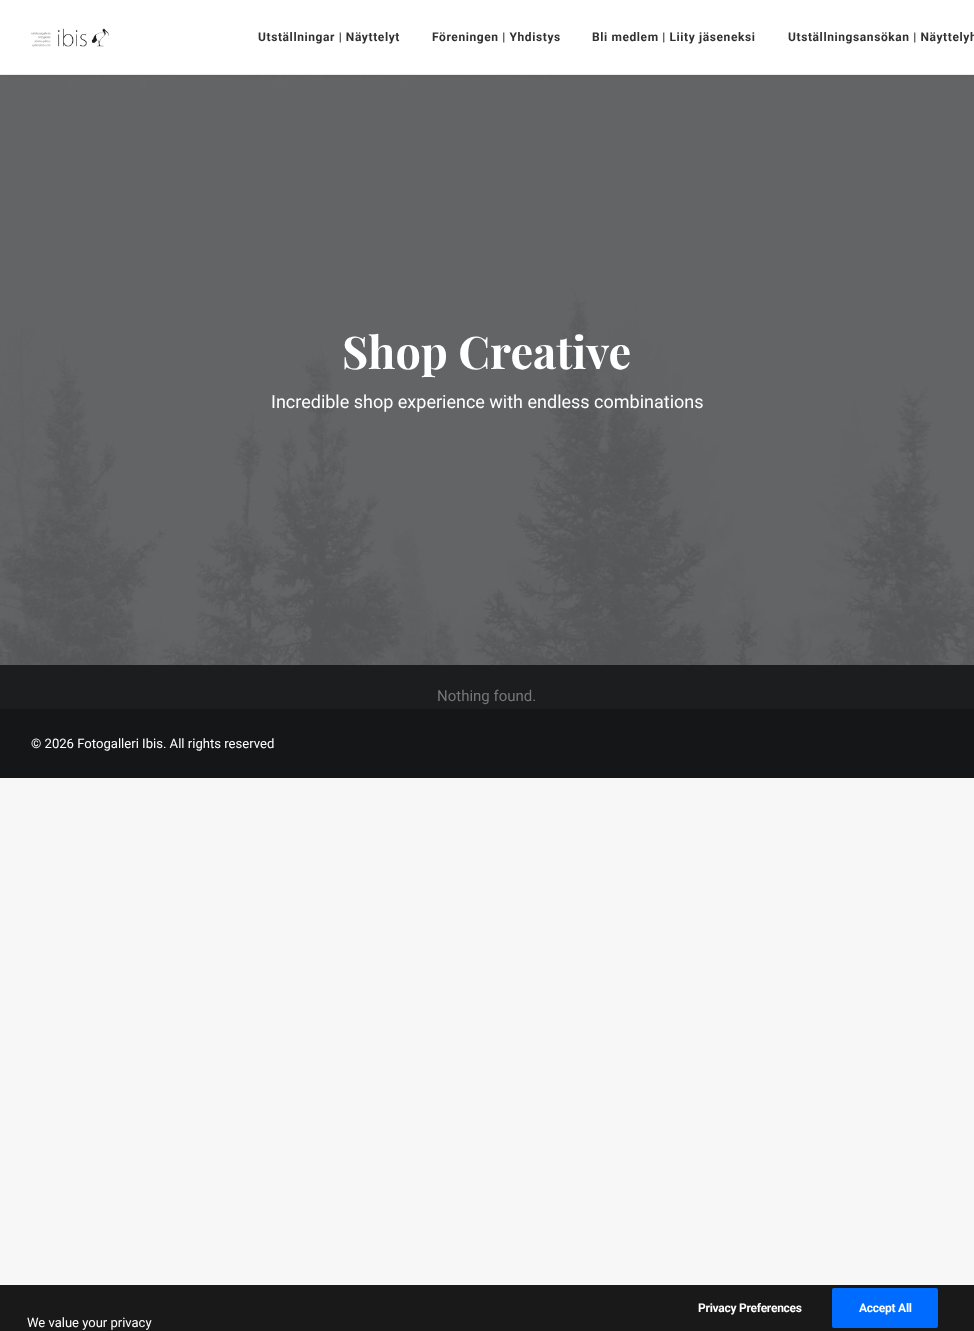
(async () => {
  const canvas = document.querySelector("canvas");
  canvas.width = 974;
  canvas.height = 1331;
  const ctx = canvas.getContext("2d");
  ctx.miterLimit = 4;
  ctx.fontKerning = "normal";
  async function loadImage(src) {
    const img = new Image();
    img.src = src;
    await img.decode();
    return img;
  }

  ctx.fillStyle = "#f7f7f7";
  ctx.fillRect(0, 0, 974, 1331);
  ctx.drawImage(await loadImage("img/2.png"), 0, 75, 974, 590);
  ctx.fillStyle = "rgba(0, 0, 0, 0.6)";
  ctx.filter = "blur(5px)";
  ctx.beginPath();
  ctx.rect(5, 14, 964, 55);
  ctx.fill();
  ctx.filter = "none";
  ctx.fillStyle = "#ffffff";
  ctx.fillRect(0, 0, 974, 74);
  ctx.fillStyle = "#eaeaea";
  ctx.fillRect(0, 74, 974, 1);
  ctx.drawImage(await loadImage("img/1.png"), 31, 28, 78, 19);
  for (const [x, y, w, h, color] of [
    [0, 665, 974, 44, "#1b1d1f"],
    [0, 709, 974, 69, "#141618"],
    [0, 1285, 974, 46, "#191919"],
  ]) {
    ctx.fillStyle = color;
    ctx.fillRect(x, y, w, h);
  }
  ctx.fillStyle = "#006cff";
  ctx.beginPath();
  ctx.roundRect(832, 1288, 106, 40, 2);
  ctx.fill();
  ctx.letterSpacing = "0.6px";
  ctx.font = "bold 12px Roboto";
  ctx.fillStyle = "#303133";
  for (const [text, x, y] of [
    ["Utställningar | Näyttelyt", 258, 41],
    ["Föreningen | Yhdistys", 432, 41],
    ["Bli medlem | Liity jäseneksi", 592, 41],
    ["Utställningsansökan | Näyttelyh", 788, 41],
  ]) {
    ctx.fillText(text, x, y);
  }
  ctx.letterSpacing = "0px";
  ctx.font = "bold 45px Playfair Display";
  ctx.fillStyle = "#ffffff";
  ctx.fillText("Shop Creative", 342, 369);
  ctx.font = "18px Roboto";
  ctx.fillText("Incredible shop experience with endless combinations", 271, 408);
  ctx.font = "15px Roboto";
  ctx.fillStyle = "#777777";
  ctx.fillText("Nothing found.", 437, 701);
  ctx.font = "13.1px Roboto";
  ctx.fillStyle = "#ffffff";
  ctx.fillText("© 2026 Fotogalleri Ibis. All rights reserved", 31, 748);
  ctx.letterSpacing = "-0.25px";
  ctx.font = "bold 12px Roboto";
  ctx.fillText("Privacy Preferences", 698, 1312);
  ctx.fillText("Accept All", 859, 1312);
  ctx.letterSpacing = "0px";
  ctx.font = "13px Roboto";
  ctx.fillText("We value your privacy", 27, 1327);
})();
